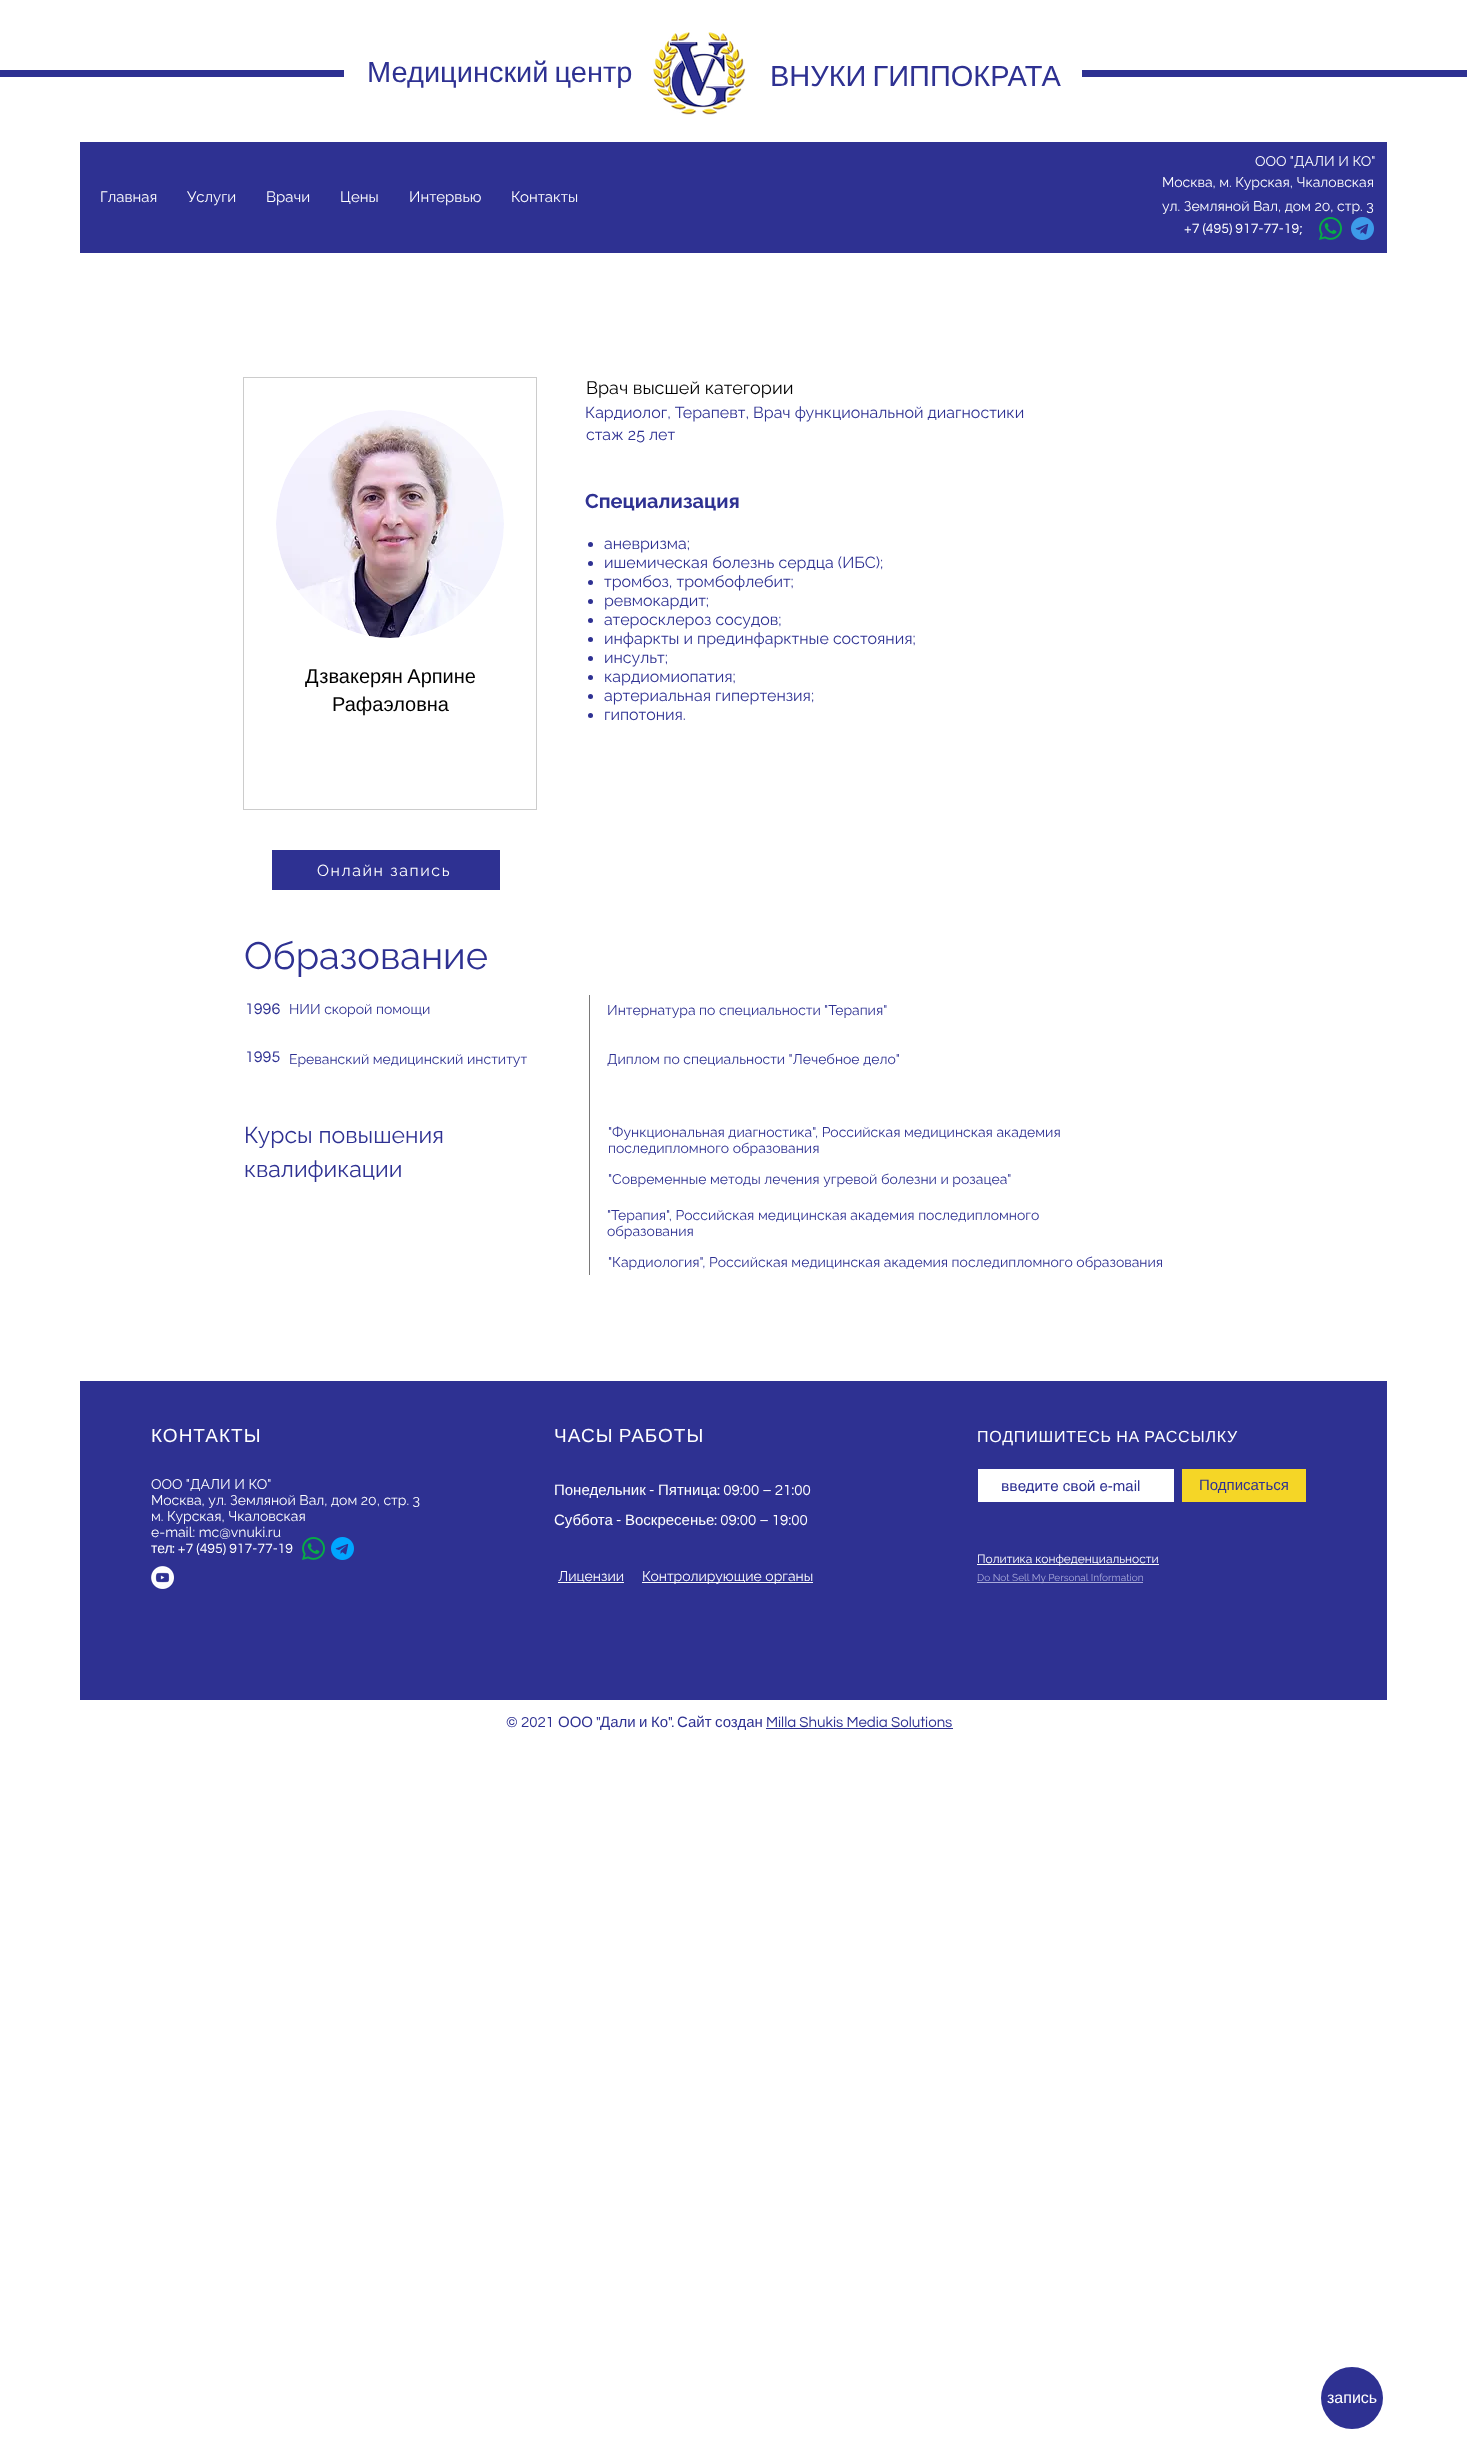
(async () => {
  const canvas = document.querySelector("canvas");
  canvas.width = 1467;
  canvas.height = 2462;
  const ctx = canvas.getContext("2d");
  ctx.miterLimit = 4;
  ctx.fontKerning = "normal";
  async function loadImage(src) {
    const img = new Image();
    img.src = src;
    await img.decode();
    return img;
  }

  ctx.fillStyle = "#ffffff";
  ctx.fillRect(0, 0, 1467, 2462);
  ctx.fillStyle = "#2e3192";
  ctx.fillRect(0, 70, 344, 7);
  ctx.drawImage(await loadImage("img/1.png"), 653, 32, 93, 83);
  ctx.fillRect(1082, 70, 385, 7);
  ctx.fillRect(80, 142, 1307, 111);
  ctx.drawImage(await loadImage("img/2.png"), 1319, 217, 23, 23);
  ctx.drawImage(await loadImage("img/3.png"), 1351, 217, 23, 23);
  ctx.strokeStyle = "#cccccc";
  ctx.strokeRect(243.5, 377.5, 293, 432);
  ctx.drawImage(await loadImage("img/4.png"), 276, 410, 228, 228);
  ctx.beginPath();
  ctx.arc(590.5, 544.5, 2.5, 0, Math.PI * 2);
  ctx.fill();
  ctx.beginPath();
  ctx.arc(590.5, 563.5, 2.5, 0, Math.PI * 2);
  ctx.fill();
  ctx.beginPath();
  ctx.arc(590.5, 582.5, 2.5, 0, Math.PI * 2);
  ctx.fill();
  ctx.beginPath();
  ctx.arc(590.5, 601.5, 2.5, 0, Math.PI * 2);
  ctx.fill();
  ctx.beginPath();
  ctx.arc(590.5, 620.5, 2.5, 0, Math.PI * 2);
  ctx.fill();
  ctx.beginPath();
  ctx.arc(590.5, 639.5, 2.5, 0, Math.PI * 2);
  ctx.fill();
  ctx.beginPath();
  ctx.arc(590.5, 658.5, 2.5, 0, Math.PI * 2);
  ctx.fill();
  ctx.beginPath();
  ctx.arc(590.5, 677.5, 2.5, 0, Math.PI * 2);
  ctx.fill();
  ctx.beginPath();
  ctx.arc(590.5, 696.5, 2.5, 0, Math.PI * 2);
  ctx.fill();
  ctx.beginPath();
  ctx.arc(590.5, 715.5, 2.5, 0, Math.PI * 2);
  ctx.fill();
  for (const [x, y, w, h, color] of [
    [272, 850, 228, 40, "#2e3192"],
    [589, 995, 1, 280, "#7a7979"],
    [80, 1381, 1307, 319, "#2e3192"],
  ]) {
    ctx.fillStyle = color;
    ctx.fillRect(x, y, w, h);
  }
  ctx.drawImage(await loadImage("img/2.png"), 302, 1537, 23, 23);
  ctx.drawImage(await loadImage("img/5.png"), 331, 1537, 23, 23);
  ctx.drawImage(await loadImage("img/6.png"), 151, 1566, 23, 23);
  for (const [x, y, w, h, color] of [
    [558, 1582, 66, 1, "#ffffff"],
    [642, 1582, 171, 1, "#ffffff"],
    [978, 1469, 196, 33, "#ffffff"],
    [1182, 1469, 124, 33, "#f5d626"],
    [977, 1564, 182, 1, "#ffffff"],
    [977, 1582, 166, 1, "#a9aadb"],
    [766, 1728, 187, 1, "#2e3192"],
  ]) {
    ctx.fillStyle = color;
    ctx.fillRect(x, y, w, h);
  }
  ctx.beginPath();
  ctx.arc(1352, 2398, 31, 0, Math.PI * 2);
  ctx.fill();
  ctx.wordSpacing = "-2px";
  ctx.font = "29px Liberation Sans";
  ctx.fillText("Медицинский центр", 367, 82);
  ctx.fillText("ВНУКИ ГИППОКРАТА", 770, 86);
  ctx.wordSpacing = "0px";
  ctx.font = "15px Raleway";
  ctx.fillStyle = "#ffffff";
  for (const [text, x, y] of [
    ["Главная", 100, 202],
    ["Услуги", 187, 202],
    ["Врачи", 266, 202],
    ["Цены", 340, 202],
    ["Интервью", 409, 202],
    ["Контакты", 511, 202],
  ]) {
    ctx.fillText(text, x, y);
  }
  ctx.font = "14px Raleway";
  for (const [text, x, y] of [
    ["ООО \"ДАЛИ И КО\"", 1255, 166],
    ["Москва, м. Курская, Чкаловская", 1162, 187],
    ["ул. Земляной Вал, дом 20, стр. 3", 1162, 211],
  ]) {
    ctx.fillText(text, x, y);
  }
  ctx.font = "14px Questrial";
  ctx.fillText("+7 (495) 917-77-19;", 1184, 233);
  ctx.font = "18px Raleway";
  ctx.fillStyle = "#000000";
  ctx.fillText("Врач высшей категории", 586, 394);
  ctx.font = "16px Raleway";
  ctx.fillStyle = "#2e3192";
  ctx.fillText("Кардиолог, Терапевт, Врач функциональной диагностики", 585, 418);
  ctx.fillText("стаж 25 лет", 586, 440);
  ctx.font = "bold 20px Raleway";
  ctx.fillText("Специализация", 585, 508);
  ctx.wordSpacing = "-1px";
  ctx.font = "20px Liberation Sans";
  ctx.fillStyle = "#000000";
  ctx.fillText("Дзвакерян Арпине", 305, 683);
  ctx.wordSpacing = "0px";
  ctx.fillText("Рафаэловна", 332, 711);
  ctx.font = "16px Raleway";
  ctx.fillStyle = "#2e3192";
  for (const [text, x, y] of [
    ["аневризма;", 604, 549],
    ["ишемическая болезнь сердца (ИБС);", 604, 568],
    ["тромбоз, тромбофлебит;", 604, 587],
    ["ревмокардит;", 604, 606],
    ["атеросклероз сосудов;", 604, 625],
    ["инфаркты и прединфарктные состояния;", 604, 644],
    ["инсульт;", 604, 663],
    ["кардиомиопатия;", 604, 682],
    ["артериальная гипертензия;", 604, 701],
    ["гипотония.", 604, 720],
  ]) {
    ctx.fillText(text, x, y);
  }
  ctx.letterSpacing = "1.6px";
  ctx.fillStyle = "#ffffff";
  ctx.fillText("Онлайн запись", 317, 876);
  ctx.letterSpacing = "0px";
  ctx.font = "38px Raleway";
  ctx.fillStyle = "#2e3192";
  ctx.fillText("Образование", 244, 969);
  ctx.font = "16px Questrial";
  ctx.fillText("1996", 245, 1014);
  ctx.font = "14px Raleway";
  ctx.fillText("НИИ скорой помощи", 289, 1014);
  ctx.fillText("Интернатура по специальности \"Терапия\"", 607, 1015);
  ctx.font = "16px Questrial";
  ctx.fillText("1995", 245, 1062);
  ctx.font = "14px Raleway";
  ctx.fillText("Ереванский медицинский институт", 289, 1064);
  ctx.fillText("Диплом по специальности \"Лечебное дело\"", 607, 1064);
  ctx.font = "23px Raleway";
  ctx.fillText("Курсы повышения", 244, 1143);
  ctx.fillText("квалификации", 244, 1177);
  ctx.font = "14px Raleway";
  for (const [text, x, y] of [
    ["\"Функциональная диагностика\", Российская медицинская академия", 608, 1137],
    ["последипломного образования", 608, 1153],
    ["\"Современные методы лечения угревой болезни и розацеа\"", 608, 1184],
    ["\"Терапия\", Российская медицинская академия последипломного", 607, 1220],
    ["образования", 607, 1236],
    ["\"Кардиология\", Российская медицинская академия последипломного образования", 608, 1267],
  ]) {
    ctx.fillText(text, x, y);
  }
  ctx.letterSpacing = "1px";
  ctx.font = "19px Liberation Sans";
  ctx.fillStyle = "#ffffff";
  ctx.fillText("КОНТАКТЫ", 151, 1442);
  ctx.letterSpacing = "0px";
  ctx.font = "14px Raleway";
  for (const [text, x, y] of [
    ["ООО \"ДАЛИ И КО\"", 151, 1489],
    ["Москва, ул. Земляной Вал, дом 20, стр. 3", 151, 1505],
    ["м. Курская, Чкаловская", 151, 1521],
    ["e-mail: mc@vnuki.ru", 151, 1537],
  ]) {
    ctx.fillText(text, x, y);
  }
  ctx.font = "14px Liberation Sans";
  ctx.fillText("тел", 151, 1553);
  ctx.font = "14px Questrial";
  ctx.fillText(": +7 (495) 917-77-19", 172, 1553);
  ctx.letterSpacing = "1px";
  ctx.wordSpacing = "-1px";
  ctx.font = "19px Liberation Sans";
  ctx.fillText("ЧАСЫ РАБОТЫ", 554, 1442);
  ctx.letterSpacing = "0px";
  ctx.wordSpacing = "0px";
  ctx.font = "15px Liberation Sans";
  ctx.fillText("Понедельник", 554, 1495);
  ctx.font = "15px Questrial";
  ctx.fillText("-", 649, 1495);
  ctx.font = "15px Liberation Sans";
  ctx.fillText("Пятница", 658, 1495);
  ctx.font = "15px Questrial";
  ctx.fillText(": 09:00 – 21:00", 717, 1495);
  ctx.font = "15px Liberation Sans";
  ctx.fillText("Суббота", 554, 1525);
  ctx.font = "15px Questrial";
  ctx.fillText("-", 616, 1525);
  ctx.font = "15px Liberation Sans";
  ctx.fillText("Воскресенье", 625, 1525);
  ctx.font = "15px Questrial";
  ctx.fillText(": 09:00 – 19:00", 714, 1525);
  ctx.font = "14px Raleway";
  ctx.fillText("Лицензии", 558, 1581);
  ctx.fillText("Контролирующие органы", 642, 1581);
  ctx.letterSpacing = "0.8px";
  ctx.wordSpacing = "-1px";
  ctx.font = "16px Liberation Sans";
  ctx.fillText("ПОДПИШИТЕСЬ НА РАССЫЛКУ", 977, 1442);
  ctx.letterSpacing = "0px";
  ctx.wordSpacing = "0px";
  ctx.font = "15px helvetica";
  ctx.fillStyle = "#2e3192";
  ctx.fillText("введите свой e-mail", 1001, 1491);
  ctx.font = "15px Liberation Sans";
  ctx.fillText("Подписаться", 1199, 1490);
  ctx.font = "12px Raleway";
  ctx.fillStyle = "#ffffff";
  ctx.fillText("Политика конфеденциальности", 977, 1563);
  ctx.font = "10px Raleway";
  ctx.fillStyle = "#a9aadb";
  ctx.fillText("Do Not Sell My Personal Information", 977, 1581);
  ctx.font = "15px Questrial";
  ctx.fillStyle = "#2e3192";
  ctx.fillText("© 2021", 506, 1727);
  ctx.font = "15px Liberation Sans";
  ctx.fillText("ООО", 558, 1727);
  ctx.font = "15px Questrial";
  ctx.fillText("\"", 596, 1727);
  ctx.font = "15px Liberation Sans";
  for (const [text, x, y] of [
    ["Дали", 600, 1727],
    ["и", 639, 1727],
    ["Ко", 651, 1727],
  ]) {
    ctx.fillText(text, x, y);
  }
  ctx.font = "15px Questrial";
  ctx.fillText("\".", 668, 1727);
  ctx.font = "15px Liberation Sans";
  ctx.fillText("Сайт", 677, 1727);
  ctx.fillText("создан", 715, 1727);
  ctx.font = "15px Questrial";
  ctx.fillText("Milla Shukis Media Solutions", 766, 1727);
  ctx.font = "16px Liberation Sans";
  ctx.fillStyle = "#ffffff";
  ctx.fillText("запись", 1327, 2403);
})();
